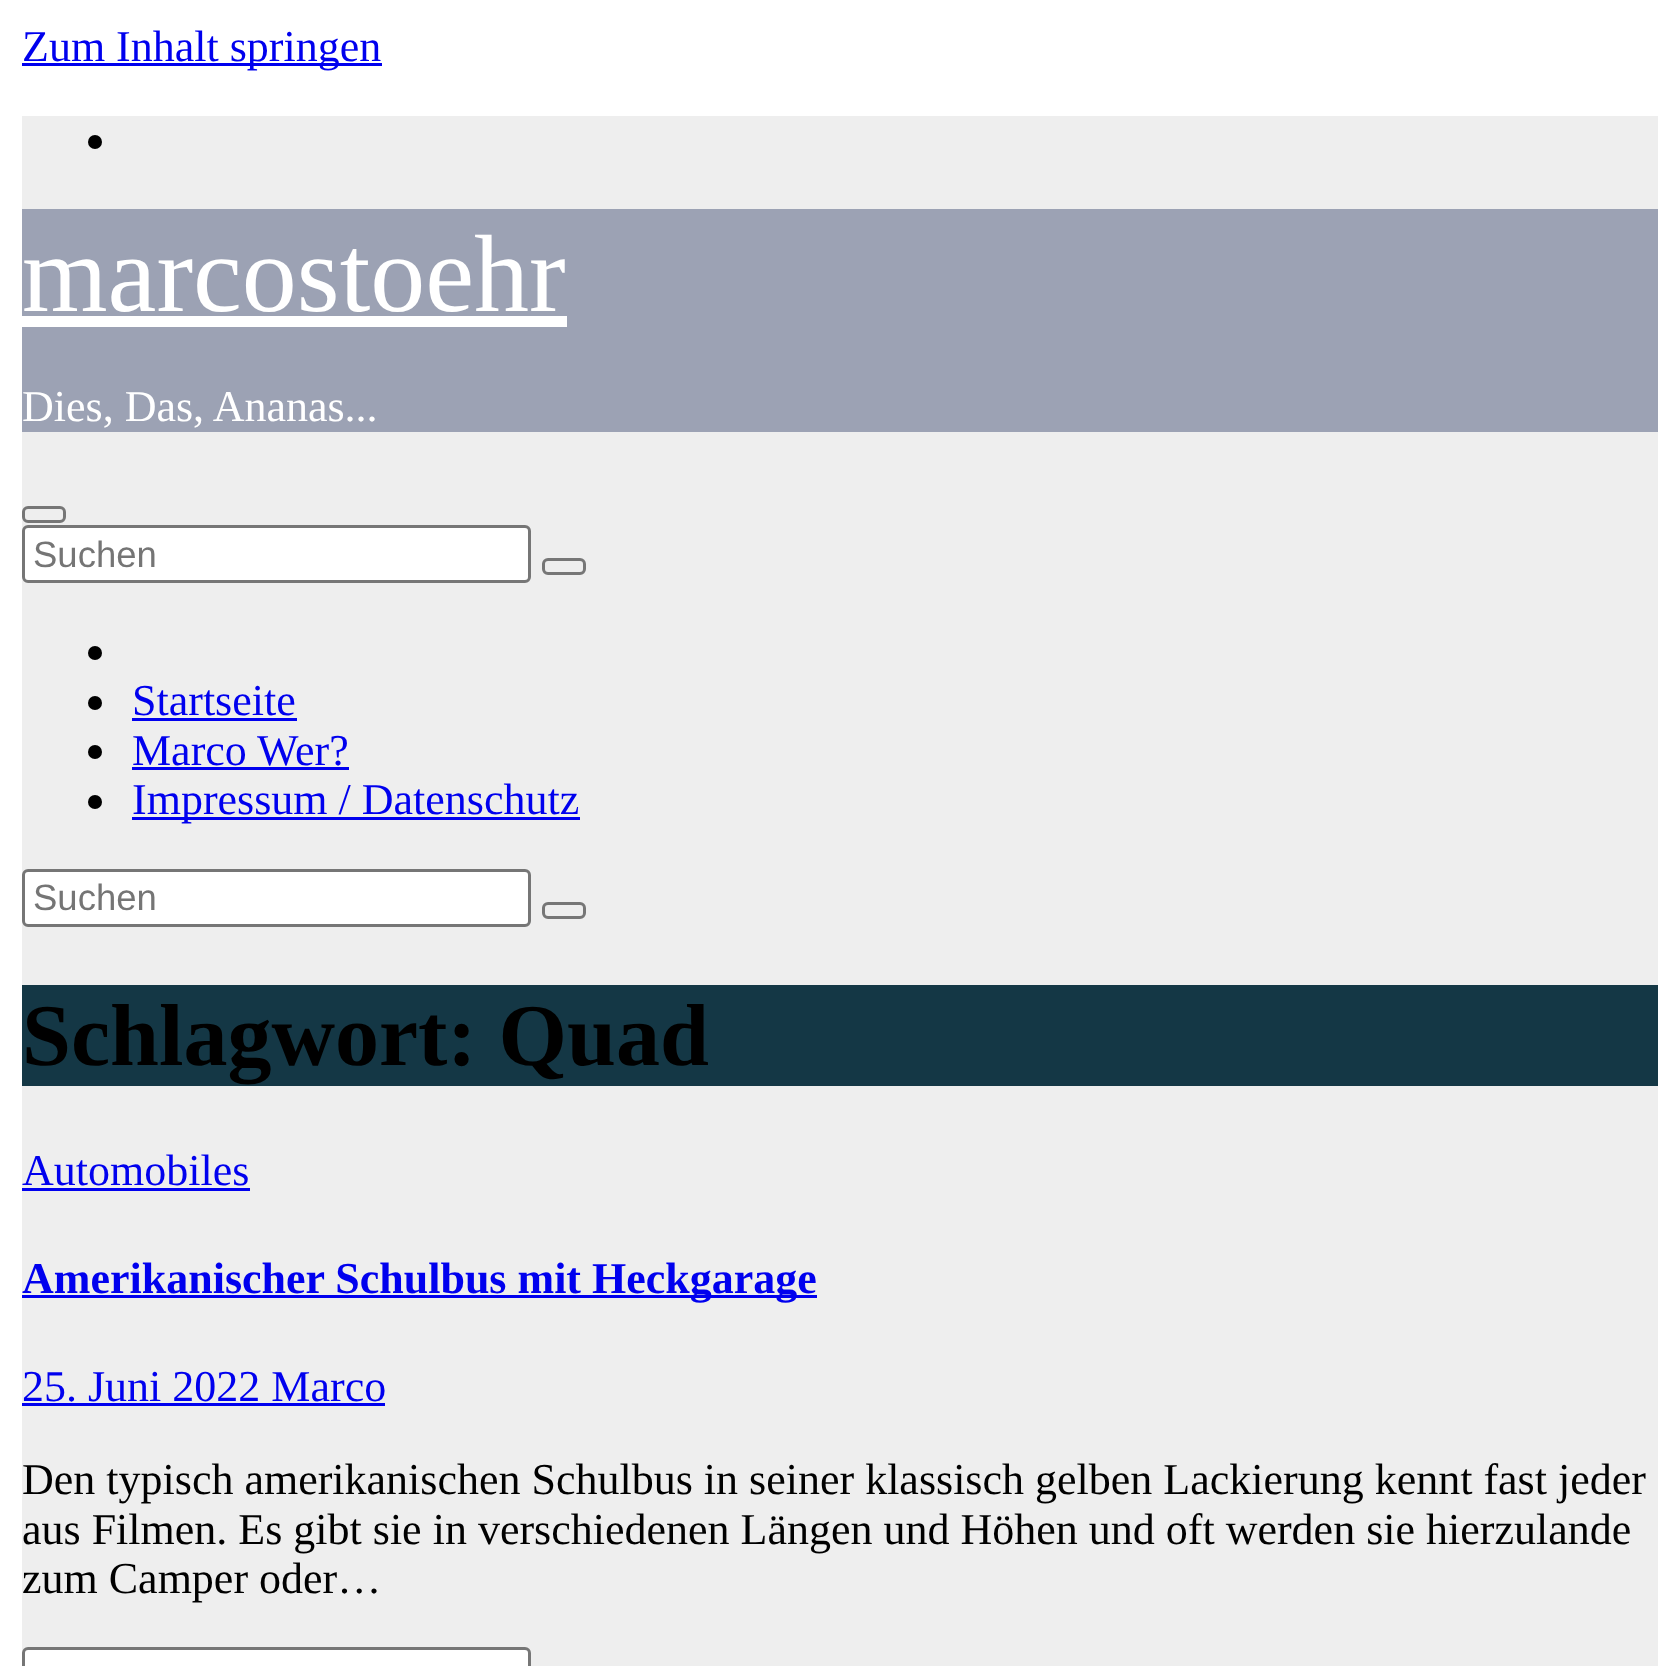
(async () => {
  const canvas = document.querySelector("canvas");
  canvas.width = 1678;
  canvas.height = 1666;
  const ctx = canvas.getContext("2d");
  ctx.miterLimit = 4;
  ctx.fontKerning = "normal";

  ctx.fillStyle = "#ffffff";
  ctx.fillRect(0, 0, 1678, 1666);
  ctx.fillStyle = "#0000ee";
  ctx.fillRect(22, 63, 360, 3);
  ctx.fillStyle = "#eeeeee";
  ctx.fillRect(22, 116, 1636, 1550);
  ctx.fillStyle = "#000000";
  ctx.beginPath();
  ctx.arc(95, 142, 7, 0, Math.PI * 2);
  ctx.fill();
  ctx.fillStyle = "#9ca2b4";
  ctx.fillRect(22, 209, 1636, 223);
  ctx.fillStyle = "#ffffff";
  ctx.fillRect(22, 316, 545, 11);
  ctx.beginPath();
  ctx.roundRect(23.5, 507.5, 41, 14, 4.5);
  ctx.strokeStyle = "#767676";
  ctx.lineWidth = 3;
  ctx.stroke();
  ctx.beginPath();
  ctx.roundRect(23.5, 526.5, 506, 55, 4.5);
  ctx.fill();
  ctx.stroke();
  ctx.beginPath();
  ctx.roundRect(543.5, 559.5, 41, 14, 4.5);
  ctx.stroke();
  ctx.fillStyle = "#000000";
  ctx.beginPath();
  ctx.arc(95, 653, 7, 0, Math.PI * 2);
  ctx.fill();
  ctx.beginPath();
  ctx.arc(95, 703, 7, 0, Math.PI * 2);
  ctx.fill();
  ctx.fillStyle = "#0000ee";
  ctx.fillRect(132, 718, 165, 3);
  ctx.fillStyle = "#000000";
  ctx.beginPath();
  ctx.arc(95, 752, 7, 0, Math.PI * 2);
  ctx.fill();
  ctx.fillStyle = "#0000ee";
  ctx.fillRect(132, 767, 217, 3);
  ctx.fillStyle = "#000000";
  ctx.beginPath();
  ctx.arc(95, 802, 7, 0, Math.PI * 2);
  ctx.fill();
  ctx.fillStyle = "#0000ee";
  ctx.fillRect(132, 817, 448, 3);
  ctx.fillStyle = "#ffffff";
  ctx.beginPath();
  ctx.roundRect(23.5, 870.5, 506, 55, 4.5);
  ctx.fill();
  ctx.stroke();
  ctx.beginPath();
  ctx.roundRect(543.5, 903.5, 41, 14, 4.5);
  ctx.stroke();
  for (const [x, y, w, h, color] of [
    [22, 985, 1636, 101, "#143745"],
    [22, 1188, 228, 3, "#0000ee"],
    [22, 1295, 795, 3, "#0000ee"],
    [22, 1403, 363, 3, "#0000ee"],
  ]) {
    ctx.fillStyle = color;
    ctx.fillRect(x, y, w, h);
  }
  ctx.fillStyle = "#ffffff";
  ctx.beginPath();
  ctx.roundRect(23.5, 1648.5, 506, 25, 4.5);
  ctx.fill();
  ctx.stroke();
  ctx.font = "44px Liberation Serif";
  ctx.fillStyle = "#0000ee";
  ctx.fillText("Zum Inhalt springen", 22, 61);
  ctx.font = "110px Liberation Serif";
  ctx.fillStyle = "#ffffff";
  ctx.fillText("marcostoehr", 22, 311);
  ctx.font = "44px Liberation Serif";
  ctx.fillText("Dies, Das, Ananas...", 22, 421);
  ctx.font = "36.5px Liberation Sans";
  ctx.fillStyle = "#757575";
  ctx.fillText("Suchen", 33, 567);
  ctx.font = "44px Liberation Serif";
  ctx.fillStyle = "#0000ee";
  for (const [text, x, y] of [
    ["Startseite", 132, 715],
    ["Marco Wer?", 132, 765],
    ["Impressum / Datenschutz", 132, 814],
  ]) {
    ctx.fillText(text, x, y);
  }
  ctx.font = "36.5px Liberation Sans";
  ctx.fillStyle = "#757575";
  ctx.fillText("Suchen", 33, 910);
  ctx.font = "bold 88px Liberation Serif";
  ctx.fillStyle = "#000000";
  ctx.fillText("Schlagwort: Quad", 22, 1065);
  ctx.font = "44px Liberation Serif";
  ctx.fillStyle = "#0000ee";
  ctx.fillText("Automobiles", 22, 1185);
  ctx.font = "bold 44px Liberation Serif";
  ctx.fillText("Amerikanischer Schulbus mit Heckgarage", 22, 1293);
  ctx.font = "44px Liberation Serif";
  ctx.fillText("25. Juni 2022 Marco", 22, 1401);
  ctx.fillStyle = "#000000";
  for (const [text, x, y] of [
    ["Den typisch amerikanischen Schulbus in seiner klassisch gelben Lackierung kennt fast jeder", 22, 1494],
    ["aus Filmen. Es gibt sie in verschiedenen Längen und Höhen und oft werden sie hierzulande", 22, 1544],
    ["zum Camper oder…", 22, 1593],
  ]) {
    ctx.fillText(text, x, y);
  }
})();
